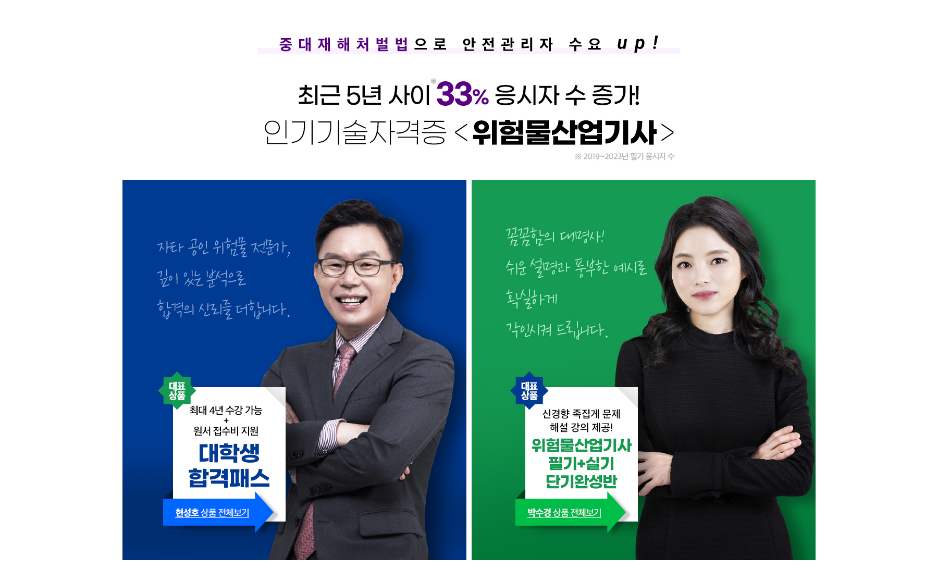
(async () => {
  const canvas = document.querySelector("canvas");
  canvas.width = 938;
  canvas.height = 562;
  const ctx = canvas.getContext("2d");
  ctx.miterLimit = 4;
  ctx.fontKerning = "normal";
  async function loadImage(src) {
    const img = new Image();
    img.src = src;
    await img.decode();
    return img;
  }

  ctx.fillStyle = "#ffffff";
  ctx.fillRect(0, 0, 938, 562);
  ctx.drawImage(await loadImage("img/1.png"), 122, 35, 694, 525);
})();
